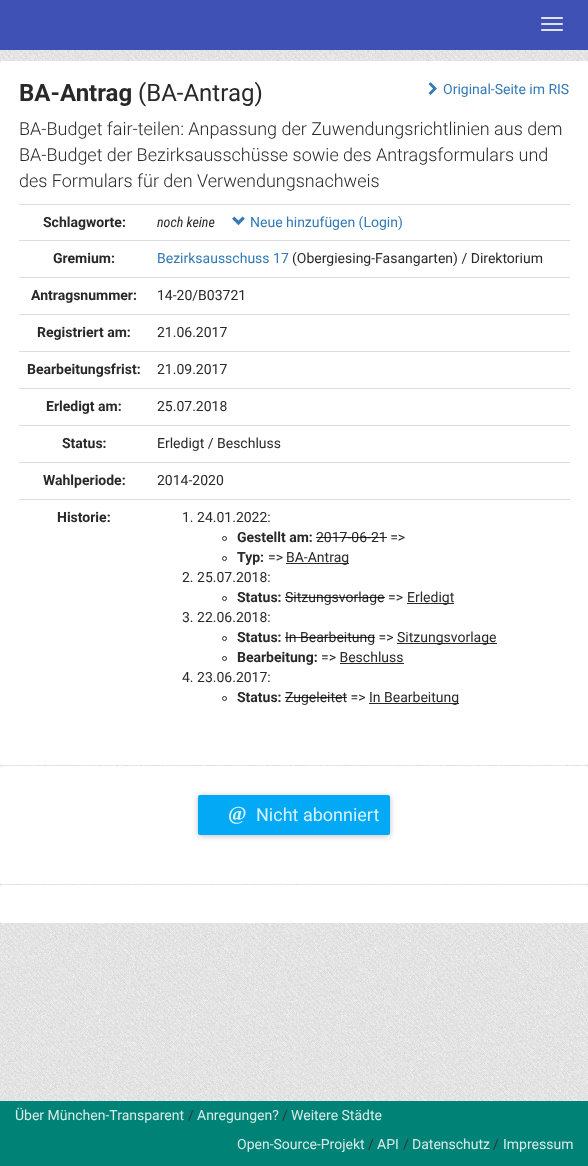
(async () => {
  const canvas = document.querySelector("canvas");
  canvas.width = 588;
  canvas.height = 1166;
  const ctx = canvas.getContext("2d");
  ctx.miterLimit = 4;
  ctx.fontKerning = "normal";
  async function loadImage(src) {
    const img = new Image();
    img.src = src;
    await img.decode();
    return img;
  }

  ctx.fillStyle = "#ffffff";
  ctx.fillRect(0, 0, 588, 1166);
  ctx.drawImage(await loadImage("img/1.png"), 0, 50, 588, 1051);
  ctx.fillStyle = "#3f51b5";
  ctx.fillRect(0, 0, 588, 50);
  ctx.fillStyle = "#e0e3f3";
  ctx.beginPath();
  ctx.roundRect(541, 17, 22, 2, 1);
  ctx.fill();
  ctx.beginPath();
  ctx.roundRect(541, 23, 22, 2, 1);
  ctx.fill();
  ctx.beginPath();
  ctx.roundRect(541, 29, 22, 2, 1);
  ctx.fill();
  ctx.fillStyle = "#ffffff";
  ctx.beginPath();
  ctx.roundRect(0, 61, 588, 704, 2);
  ctx.fill();
  ctx.drawImage(await loadImage("img/2.png"), 428, 82, 9, 13);
  ctx.fillStyle = "#dddddd";
  ctx.fillRect(19, 204, 551, 1);
  ctx.drawImage(await loadImage("img/3.png"), 232, 216, 13, 10);
  for (const [x, y, w, h, color] of [
    [19, 240, 551, 1, "#dddddd"],
    [19, 277, 551, 1, "#dddddd"],
    [19, 314, 551, 1, "#dddddd"],
    [19, 351, 551, 1, "#dddddd"],
    [19, 388, 551, 1, "#dddddd"],
    [19, 425, 551, 1, "#dddddd"],
    [19, 462, 551, 1, "#dddddd"],
    [19, 499, 551, 1, "#dddddd"],
  ]) {
    ctx.fillStyle = color;
    ctx.fillRect(x, y, w, h);
  }
  ctx.beginPath();
  ctx.arc(224.5, 538.5, 2, 0, Math.PI * 2);
  ctx.strokeStyle = "#292929";
  ctx.stroke();
  ctx.beginPath();
  ctx.arc(224.5, 558.5, 2, 0, Math.PI * 2);
  ctx.stroke();
  ctx.fillStyle = "#292929";
  ctx.fillRect(286, 563, 63, 1);
  ctx.beginPath();
  ctx.arc(224.5, 598.5, 2, 0, Math.PI * 2);
  ctx.stroke();
  ctx.fillRect(407, 603, 47, 1);
  ctx.beginPath();
  ctx.arc(224.5, 638.5, 2, 0, Math.PI * 2);
  ctx.stroke();
  ctx.fillRect(397, 643, 100, 1);
  ctx.beginPath();
  ctx.arc(224.5, 658.5, 2, 0, Math.PI * 2);
  ctx.stroke();
  ctx.fillRect(340, 663, 64, 1);
  ctx.beginPath();
  ctx.arc(224.5, 698.5, 2, 0, Math.PI * 2);
  ctx.stroke();
  ctx.fillRect(369, 703, 90, 1);
  ctx.fillStyle = "#ffffff";
  ctx.beginPath();
  ctx.roundRect(0, 766, 588, 118, 2);
  ctx.fill();
  ctx.fillStyle = "rgba(0, 0, 0, 0.12)";
  ctx.filter = "blur(3px)";
  ctx.beginPath();
  ctx.roundRect(198, 796, 192, 40, 2);
  ctx.fill();
  ctx.filter = "none";
  ctx.filter = "blur(3px)";
  ctx.beginPath();
  ctx.roundRect(198, 796, 192, 40, 2);
  ctx.fill();
  ctx.filter = "none";
  ctx.fillStyle = "#03a9f4";
  ctx.beginPath();
  ctx.roundRect(198, 795, 192, 40, 2);
  ctx.fill();
  ctx.fillStyle = "#ffffff";
  ctx.beginPath();
  ctx.roundRect(0, 885, 588, 38, 2);
  ctx.fill();
  ctx.fillStyle = "#008276";
  ctx.fillRect(0, 1101, 588, 65);
  ctx.font = "bold 24px Roboto";
  ctx.fillStyle = "#292929";
  ctx.fillText("BA-Antrag", 19, 101);
  ctx.font = "24px Roboto";
  ctx.fillText("(BA-Antrag)", 138, 101);
  ctx.font = "14px Roboto";
  ctx.fillStyle = "#337ab7";
  ctx.fillText("Original-Seite im RIS", 443, 94);
  ctx.font = "300 18px Roboto";
  ctx.fillStyle = "#292929";
  for (const [text, x, y] of [
    ["BA-Budget fair-teilen: Anpassung der Zuwendungsrichtlinien aus dem", 19, 135],
    ["BA-Budget der Bezirksausschüsse sowie des Antragsformulars und", 19, 161],
    ["des Formulars für den Verwendungsnachweis", 19, 187],
  ]) {
    ctx.fillText(text, x, y);
  }
  ctx.font = "bold 14px Roboto";
  ctx.fillText("Schlagworte:", 43, 227);
  ctx.font = "italic 14px Roboto Condensed";
  ctx.fillText("noch keine", 157, 227);
  ctx.font = "14px Roboto";
  ctx.fillStyle = "#337ab7";
  ctx.fillText("Neue hinzufügen (Login)", 250, 227);
  ctx.font = "bold 14px Roboto";
  ctx.fillStyle = "#292929";
  ctx.fillText("Gremium:", 53, 263);
  ctx.font = "14px Roboto";
  ctx.fillStyle = "#337ab7";
  ctx.fillText("Bezirksausschuss 17", 157, 263);
  ctx.fillStyle = "#292929";
  ctx.fillText("(Obergiesing-Fasangarten) / Direktorium", 292, 263);
  ctx.font = "bold 14px Roboto";
  ctx.fillText("Antragsnummer:", 31, 300);
  ctx.font = "14px Roboto";
  ctx.fillText("14-20/B03721", 157, 300);
  ctx.font = "bold 14px Roboto";
  ctx.fillText("Registriert am:", 37, 337);
  ctx.font = "14px Roboto";
  ctx.fillText("21.06.2017", 157, 337);
  ctx.font = "bold 14px Roboto";
  ctx.fillText("Bearbeitungsfrist:", 27, 374);
  ctx.font = "14px Roboto";
  ctx.fillText("21.09.2017", 157, 374);
  ctx.font = "bold 14px Roboto";
  ctx.fillText("Erledigt am:", 46, 411);
  ctx.font = "14px Roboto";
  ctx.fillText("25.07.2018", 157, 411);
  ctx.font = "bold 14px Roboto";
  ctx.fillText("Status:", 62, 448);
  ctx.font = "14px Roboto";
  ctx.fillText("Erledigt / Beschluss", 157, 448);
  ctx.font = "bold 14px Roboto";
  ctx.fillText("Wahlperiode:", 43, 485);
  ctx.font = "14px Roboto";
  ctx.fillText("2014-2020", 157, 485);
  ctx.font = "bold 14px Roboto";
  ctx.fillText("Historie:", 57, 522);
  ctx.font = "14px Roboto";
  ctx.fillText("1. 24.01.2022:", 182, 522);
  ctx.font = "bold 14px Roboto";
  ctx.fillText("Gestellt am:", 237, 542);
  ctx.font = "14px Roboto";
  ctx.fillText("2017-06-21 =>", 316, 542);
  ctx.fillStyle = "rgba(0, 0, 0, 0.84)";
  ctx.fillRect(316, 537, 71, 1);
  ctx.font = "bold 14px Roboto";
  ctx.fillStyle = "#292929";
  ctx.fillText("Typ:", 237, 562);
  ctx.font = "14px Roboto";
  for (const [text, x, y] of [
    ["=>", 268, 562],
    ["BA-Antrag", 286, 562],
    ["2. 25.07.2018:", 182, 582],
  ]) {
    ctx.fillText(text, x, y);
  }
  ctx.font = "bold 14px Roboto";
  ctx.fillText("Status:", 237, 602);
  ctx.font = "14px Roboto";
  ctx.fillText("Sitzungsvorlage =>", 285, 602);
  ctx.fillStyle = "rgba(0, 0, 0, 0.84)";
  ctx.fillRect(285, 597, 100, 1);
  ctx.fillStyle = "#292929";
  ctx.fillText("Erledigt", 407, 602);
  ctx.fillText("3. 22.06.2018:", 182, 622);
  ctx.font = "bold 14px Roboto";
  ctx.fillText("Status:", 237, 642);
  ctx.font = "14px Roboto";
  ctx.fillText("In Bearbeitung =>", 285, 642);
  ctx.fillStyle = "rgba(0, 0, 0, 0.84)";
  ctx.fillRect(285, 637, 90, 1);
  ctx.fillStyle = "#292929";
  ctx.fillText("Sitzungsvorlage", 397, 642);
  ctx.font = "bold 14px Roboto";
  ctx.fillText("Bearbeitung:", 237, 662);
  ctx.font = "14px Roboto";
  ctx.fillText("=> Beschluss", 321, 662);
  ctx.fillText("4. 23.06.2017:", 182, 682);
  ctx.font = "bold 14px Roboto";
  ctx.fillText("Status:", 237, 702);
  ctx.font = "14px Roboto";
  ctx.fillText("Zugeleitet =>", 285, 702);
  ctx.fillStyle = "rgba(0, 0, 0, 0.84)";
  ctx.fillRect(285, 697, 62, 1);
  ctx.fillStyle = "#292929";
  ctx.fillText("In Bearbeitung", 369, 702);
  ctx.font = "bold 20px Liberation Serif";
  ctx.fillStyle = "#d7f1fd";
  ctx.fillText("@", 228, 820);
  ctx.font = "18px Roboto";
  ctx.fillText("Nicht abonniert", 256, 821);
  ctx.font = "14px Roboto";
  ctx.fillStyle = "#d6ebe9";
  ctx.fillText("Über München-Transparent", 15, 1120);
  ctx.fillStyle = "#333333";
  ctx.fillText("/", 188, 1120);
  ctx.fillStyle = "#d6ebe9";
  ctx.fillText("Anregungen?", 197, 1120);
  ctx.fillStyle = "#333333";
  ctx.fillText("/", 282, 1120);
  ctx.fillStyle = "#d6ebe9";
  ctx.fillText("Weitere Städte", 291, 1120);
  ctx.fillText("Open-Source-Projekt", 237, 1149);
  ctx.fillStyle = "#333333";
  ctx.fillText("/", 368, 1149);
  ctx.fillStyle = "#d6ebe9";
  ctx.fillText("API", 377, 1149);
  ctx.fillStyle = "#333333";
  ctx.fillText("/", 403, 1149);
  ctx.fillStyle = "#d6ebe9";
  ctx.fillText("Datenschutz", 412, 1149);
  ctx.fillStyle = "#333333";
  ctx.fillText("/", 493, 1149);
  ctx.fillStyle = "#d6ebe9";
  ctx.fillText("Impressum", 503, 1149);
})();
